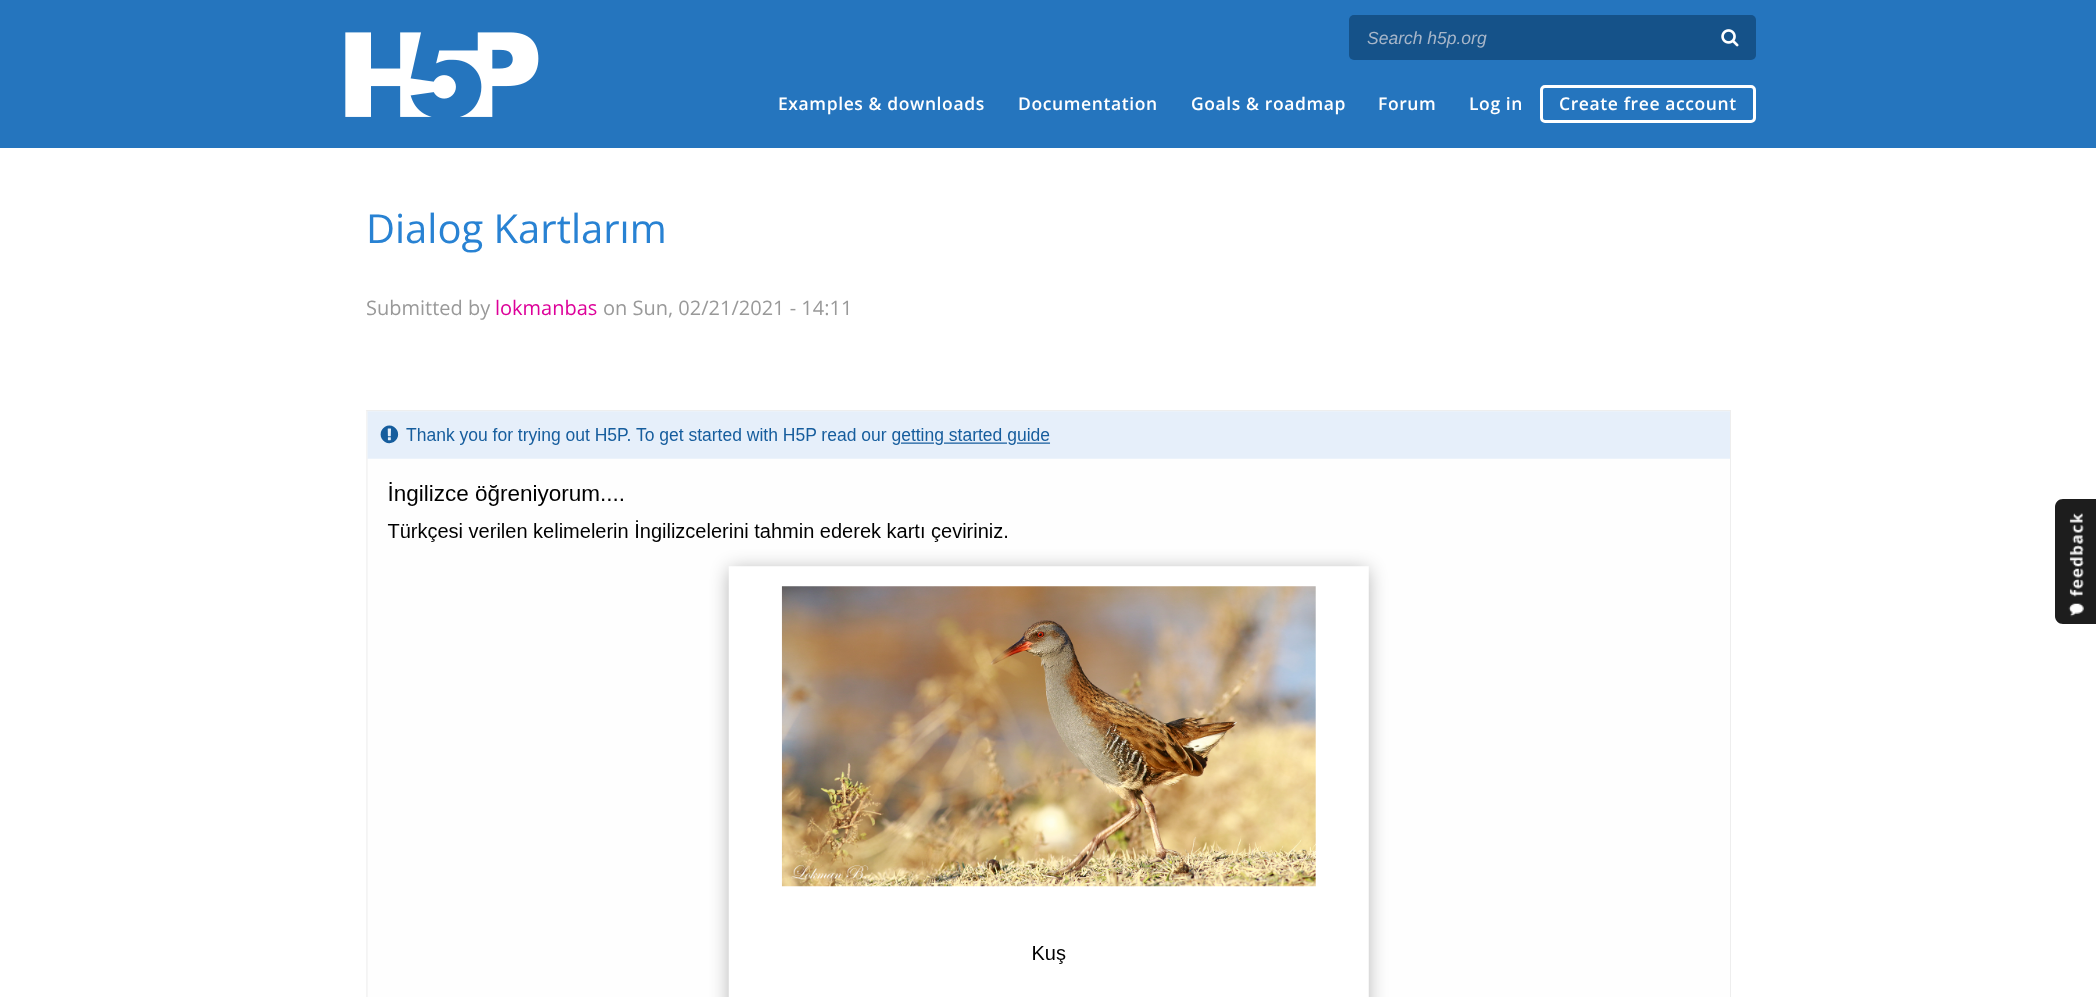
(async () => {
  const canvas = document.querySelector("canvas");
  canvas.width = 2096;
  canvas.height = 997;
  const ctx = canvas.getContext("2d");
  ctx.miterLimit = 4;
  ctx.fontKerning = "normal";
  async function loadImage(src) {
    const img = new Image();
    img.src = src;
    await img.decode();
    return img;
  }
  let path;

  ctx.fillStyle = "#ffffff";
  ctx.fillRect(0, 0, 2096, 997);
  ctx.fillStyle = "#2575be";
  ctx.fillRect(0, 0, 2096, 148);
  ctx.drawImage(await loadImage("img/1.png"), 345, 32, 194, 85);
  ctx.fillStyle = "#155289";
  ctx.beginPath();
  ctx.roundRect(1349, 15, 407, 45, 5);
  ctx.fill();
  ctx.drawImage(await loadImage("img/2.png"), 1721, 29, 18, 18);
  ctx.beginPath();
  ctx.roundRect(1541.5, 86.5, 213, 35, 3.5);
  ctx.strokeStyle = "#ffffff";
  ctx.lineWidth = 3;
  ctx.stroke();
  ctx.drawImage(await loadImage("img/3.png"), 366, 410, 1365, 587);
  ctx.fillStyle = "#1d1d1d";
  path = new Path2D("M2063 499H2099V624H2063C2058.5 624 2055 620.5 2055 616V507C2055 502.5 2058.5 499 2063 499Z");
  ctx.fill(path);
  ctx.drawImage(await loadImage("img/4.png"), 2068, 513, 16, 104);
  ctx.font = "italic 17.5px Liberation Sans";
  ctx.fillStyle = "#a7b6c9";
  ctx.fillText("Search h5p.org", 1367, 44);
  ctx.letterSpacing = "0.6px";
  ctx.font = "600 17.5px Open Sans";
  ctx.fillStyle = "#ffffff";
  for (const [text, x, y] of [
    ["Examples & downloads", 778, 110],
    ["Documentation", 1018, 110],
    ["Goals & roadmap", 1191, 110],
    ["Forum", 1378, 110],
    ["Log in", 1469, 110],
    ["Create free account", 1559, 110],
  ]) {
    ctx.fillText(text, x, y);
  }
  ctx.letterSpacing = "0px";
  ctx.font = "40px Open Sans";
  ctx.fillStyle = "#2882d3";
  ctx.fillText("Dialog Kartlarım", 366, 243);
  ctx.font = "20px Open Sans";
  ctx.fillStyle = "#999999";
  ctx.fillText("Submitted by", 366, 315);
  ctx.fillStyle = "#dd0099";
  ctx.fillText("lokmanbas", 495, 315);
  ctx.fillStyle = "#999999";
  ctx.fillText("on Sun, 02/21/2021 - 14:11", 603, 315);
})();
